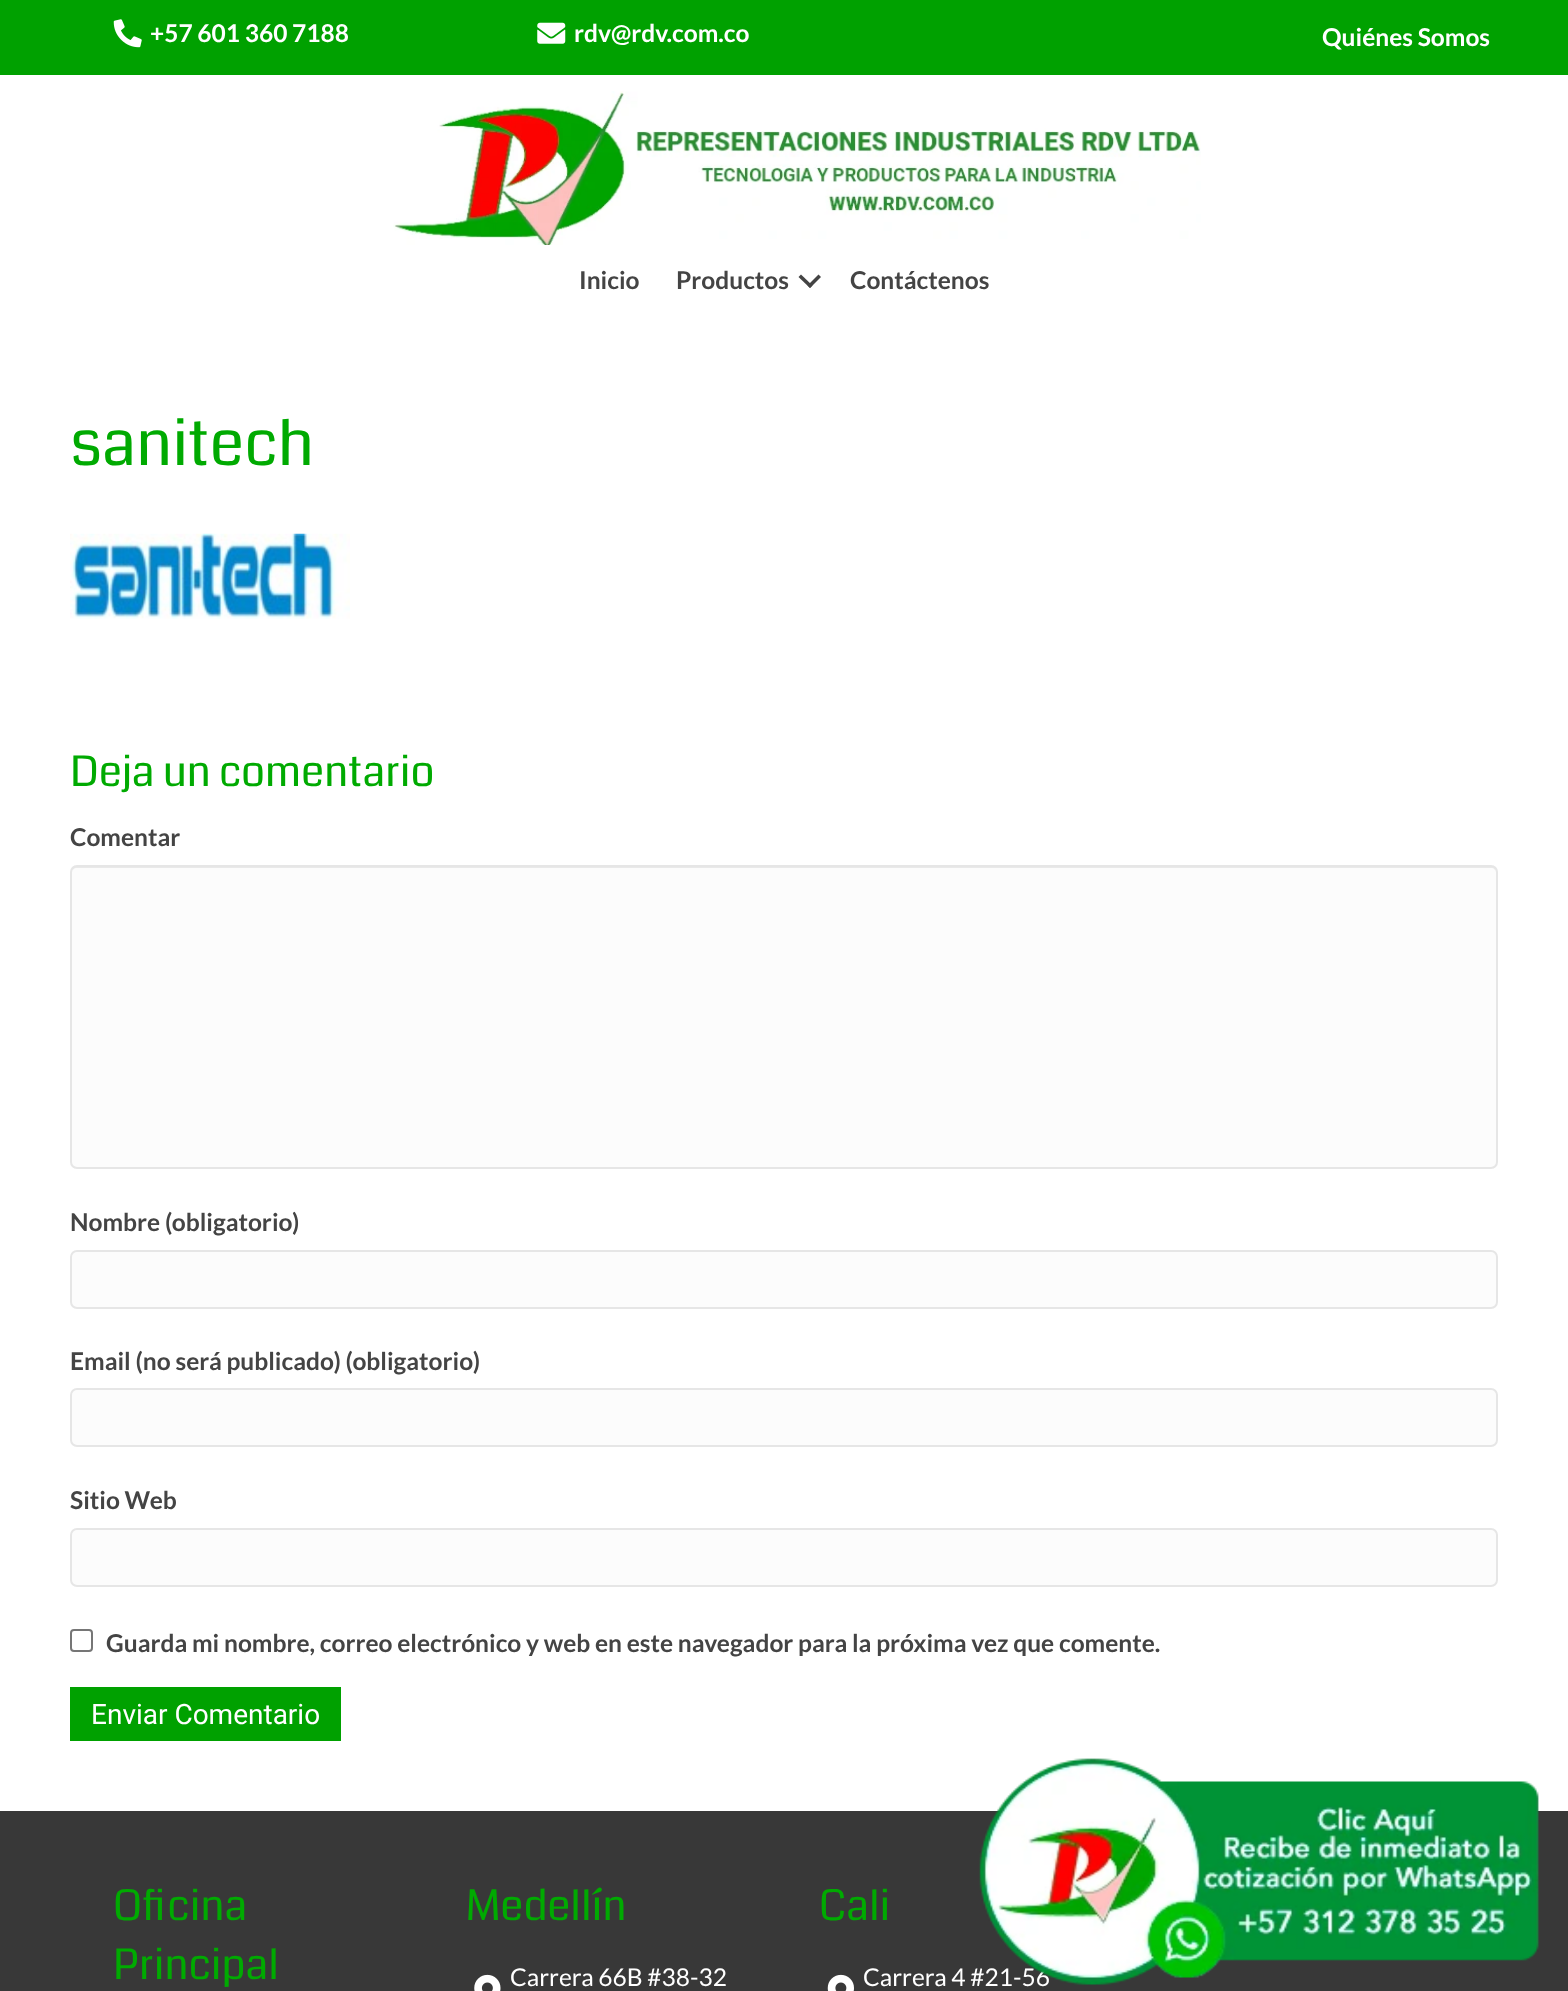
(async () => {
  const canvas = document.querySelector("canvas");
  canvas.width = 1568;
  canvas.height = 1991;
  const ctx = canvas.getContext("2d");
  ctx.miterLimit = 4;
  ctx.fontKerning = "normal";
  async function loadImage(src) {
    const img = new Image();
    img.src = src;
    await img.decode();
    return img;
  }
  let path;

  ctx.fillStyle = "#ffffff";
  ctx.fillRect(0, 0, 1568, 1991);
  ctx.fillStyle = "#00a100";
  ctx.fillRect(0, 0, 1568, 75);
  ctx.drawImage(await loadImage("img/1.png"), 113, 19, 29, 29);
  ctx.drawImage(await loadImage("img/2.png"), 537, 22, 29, 22);
  ctx.drawImage(await loadImage("img/3.png"), 393, 91, 808, 154);
  ctx.fillStyle = "#444444";
  path = new Path2D("M818.5 274.5L821 277L810 288L807.5 285.5Z");
  ctx.fill(path);
  path = new Path2D("M801 274.5L812.5 285.5L810 288L798.5 277Z");
  ctx.fill(path);
  ctx.drawImage(await loadImage("img/4.png"), 70, 533, 280, 86);
  ctx.fillStyle = "#fcfcfc";
  ctx.beginPath();
  ctx.roundRect(70, 865, 1428, 304, 7);
  ctx.fill();
  ctx.fillStyle = "#e9e9e9";
  path = new Path2D("M77 868H1491C1494 868 1496 870 1496 873C1496 870 1495 866 1491 866H77C73 866 72 870 72 873C72 870 74 868 77 868Z");
  ctx.fill(path);
  ctx.beginPath();
  ctx.roundRect(71, 866, 1426, 302, 6);
  ctx.strokeStyle = "#e6e6e6";
  ctx.lineWidth = 2;
  ctx.stroke();
  ctx.fillStyle = "#fcfcfc";
  ctx.beginPath();
  ctx.roundRect(71, 1251, 1426, 57, 6);
  ctx.fill();
  ctx.stroke();
  ctx.beginPath();
  ctx.roundRect(71, 1389, 1426, 57, 6);
  ctx.fill();
  ctx.stroke();
  ctx.beginPath();
  ctx.roundRect(71, 1529, 1426, 57, 6);
  ctx.fill();
  ctx.stroke();
  ctx.beginPath();
  ctx.roundRect(71, 1630, 21, 21, 3);
  ctx.strokeStyle = "#767676";
  ctx.stroke();
  ctx.fillStyle = "#00a100";
  ctx.fillRect(70, 1687, 271, 54);
  ctx.fillStyle = "#383838";
  ctx.fillRect(0, 1811, 1568, 180);
  ctx.drawImage(await loadImage("img/5.png"), 474, 1974, 27, 17);
  ctx.drawImage(await loadImage("img/6.png"), 827, 1974, 27, 17);
  ctx.font = "bold 24.5px Lato";
  ctx.fillStyle = "#ffffff";
  for (const [text, x, y] of [
    ["+57 601 360 7188", 150, 42],
    ["rdv@rdv.com.co", 574, 42],
    ["Quiénes Somos", 1322, 46],
  ]) {
    ctx.fillText(text, x, y);
  }
  ctx.fillStyle = "#444444";
  for (const [text, x, y] of [
    ["Inicio", 579, 289],
    ["Productos", 676, 289],
    ["Contáctenos", 850, 289],
  ]) {
    ctx.fillText(text, x, y);
  }
  ctx.font = "63px Coda";
  ctx.fillStyle = "#00aa01";
  ctx.fillText("sanitech", 70, 465);
  ctx.font = "42px Coda";
  ctx.fillText("Deja un comentario", 70, 786);
  ctx.font = "bold 24.5px Lato";
  ctx.fillStyle = "#444444";
  for (const [text, x, y] of [
    ["Comentar", 70, 846],
    ["Nombre (obligatorio)", 70, 1231],
    ["Email (no será publicado) (obligatorio)", 70, 1370],
    ["Sitio Web", 70, 1509],
    ["Guarda mi nombre, correo electrónico y web en este navegador para la próxima vez que comente.", 106, 1652],
  ]) {
    ctx.fillText(text, x, y);
  }
  ctx.font = "28px Roboto";
  ctx.fillStyle = "#ffffff";
  ctx.fillText("Enviar Comentario", 91, 1724);
  ctx.font = "42px Coda";
  ctx.fillStyle = "#00aa01";
  for (const [text, x, y] of [
    ["Oficina", 113, 1920],
    ["Principal", 113, 1979],
    ["Medellín", 466, 1920],
  ]) {
    ctx.fillText(text, x, y);
  }
  ctx.font = "24.5px Lato";
  ctx.fillStyle = "#ffffff";
  ctx.fillText("Carrera 66B #38-32", 510, 1986);
  ctx.font = "42px Coda";
  ctx.fillStyle = "#00aa01";
  ctx.fillText("Cali", 819, 1920);
  ctx.font = "24.5px Lato";
  ctx.fillStyle = "#ffffff";
  ctx.fillText("Carrera 4 #21-56", 863, 1986);
  ctx.drawImage(await loadImage("img/7.png"), 979, 1758, 560, 227);
})();
